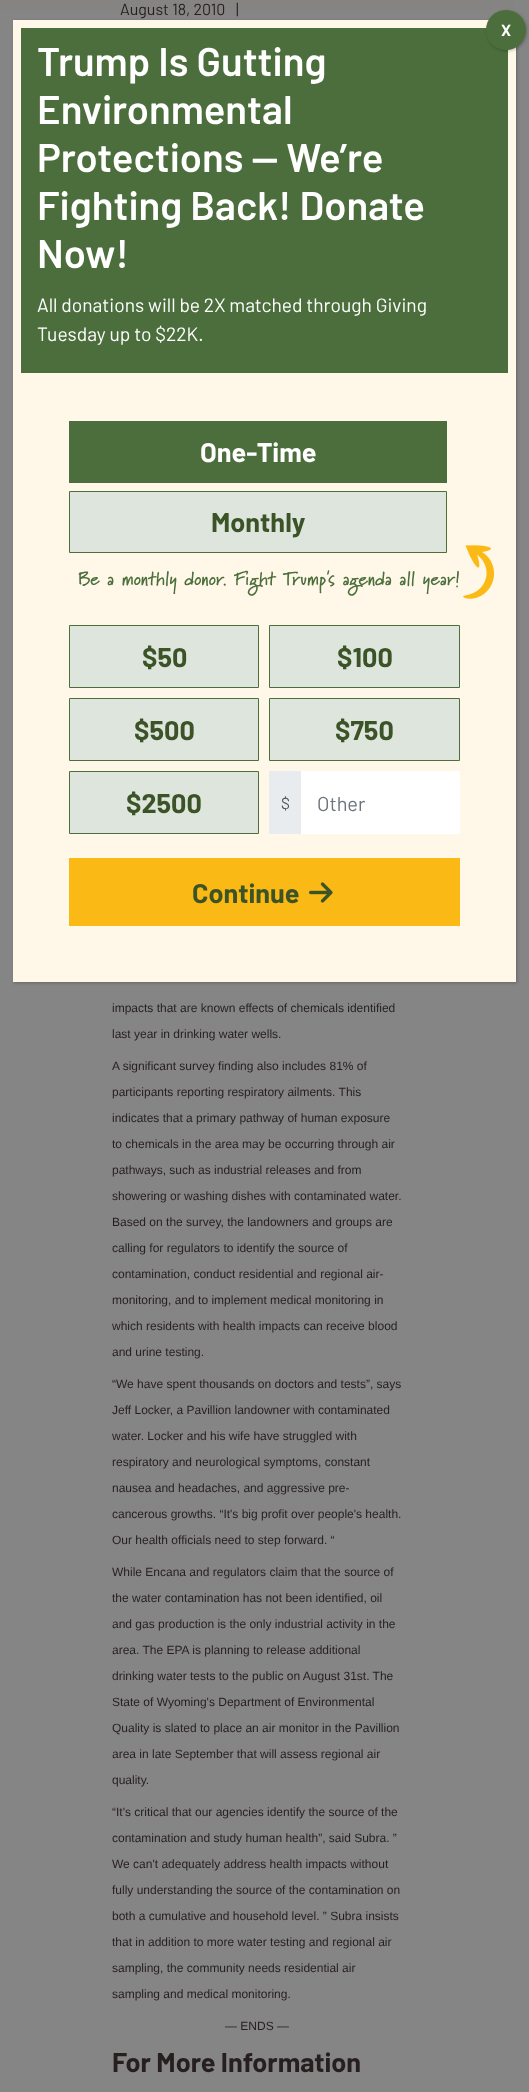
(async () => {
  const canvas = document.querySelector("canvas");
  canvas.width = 529;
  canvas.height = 2092;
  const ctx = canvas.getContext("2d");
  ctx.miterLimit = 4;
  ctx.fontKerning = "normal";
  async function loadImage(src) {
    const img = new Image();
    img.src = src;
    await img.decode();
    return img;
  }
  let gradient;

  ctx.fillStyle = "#858585";
  ctx.fillRect(0, 0, 529, 2092);
  gradient = ctx.createLinearGradient(257, -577, 257, 135);
  gradient.addColorStop(0.16, "#858179");
  gradient.addColorStop(1, "#858585");
  ctx.fillStyle = gradient;
  ctx.fillRect(0, 0, 514, 10);
  ctx.fillStyle = "rgba(2, 2, 2, 0.23)";
  ctx.filter = "blur(1.5px)";
  ctx.beginPath();
  ctx.rect(14, 21, 503, 962);
  ctx.fill();
  ctx.filter = "none";
  ctx.fillStyle = "#fff8e8";
  ctx.fillRect(13, 20, 503, 962);
  ctx.fillStyle = "#4b6e3c";
  ctx.fillRect(21, 28, 487, 345);
  ctx.fillStyle = "rgba(2, 2, 2, 0.23)";
  ctx.filter = "blur(1.5px)";
  ctx.beginPath();
  ctx.roundRect(487, 11, 40, 40, 20);
  ctx.fill();
  ctx.filter = "none";
  ctx.fillStyle = "#4b6e3c";
  ctx.beginPath();
  ctx.arc(506, 30, 20, 0, Math.PI * 2);
  ctx.fill();
  ctx.fillRect(69, 421, 378, 62);
  ctx.fillStyle = "#dde5dd";
  ctx.beginPath();
  ctx.rect(69.5, 491.5, 377, 61);
  ctx.fill();
  ctx.strokeStyle = "#4b6e3c";
  ctx.stroke();
  ctx.drawImage(await loadImage("img/1.png"), 463, 545, 31, 54);
  ctx.beginPath();
  ctx.rect(69.5, 625.5, 189, 62);
  ctx.fill();
  ctx.stroke();
  ctx.beginPath();
  ctx.rect(269.5, 625.5, 190, 62);
  ctx.fill();
  ctx.stroke();
  ctx.beginPath();
  ctx.rect(69.5, 698.5, 189, 62);
  ctx.fill();
  ctx.stroke();
  ctx.beginPath();
  ctx.rect(269.5, 698.5, 190, 62);
  ctx.fill();
  ctx.stroke();
  ctx.beginPath();
  ctx.rect(69.5, 771.5, 189, 62);
  ctx.fill();
  ctx.stroke();
  for (const [x, y, w, h, color] of [
    [269, 771, 32, 63, "#e9ecef"],
    [301, 771, 159, 63, "#ffffff"],
    [69, 858, 391, 68, "#fbb915"],
  ]) {
    ctx.fillStyle = color;
    ctx.fillRect(x, y, w, h);
  }
  ctx.drawImage(await loadImage("img/2.png"), 309, 882, 24, 21);
  ctx.font = "16px Barlow";
  ctx.fillStyle = "#271f1f";
  ctx.fillText("August 18, 2010", 120, 15);
  ctx.fillText("|", 236, 15);
  ctx.font = "12px Liberation Sans";
  for (const [text, x, y] of [
    ["impacts that are known effects of chemicals identified", 112, 1012],
    ["last year in drinking water wells.", 112, 1038],
    ["A significant survey finding also includes 81% of", 112, 1070],
    ["participants reporting respiratory ailments. This", 112, 1096],
    ["indicates that a primary pathway of human exposure", 112, 1122],
    ["to chemicals in the area may be occurring through air", 112, 1148],
    ["pathways, such as industrial releases and from", 112, 1174],
    ["showering or washing dishes with contaminated water.", 112, 1200],
    ["Based on the survey, the landowners and groups are", 112, 1226],
    ["calling for regulators to identify the source of", 112, 1252],
    ["contamination, conduct residential and regional air-", 112, 1278],
    ["monitoring, and to implement medical monitoring in", 112, 1304],
    ["which residents with health impacts can receive blood", 112, 1330],
    ["and urine testing.", 112, 1356],
    ["“We have spent thousands on doctors and tests”, says", 112, 1388],
    ["Jeff Locker, a Pavillion landowner with contaminated", 112, 1414],
    ["water. Locker and his wife have struggled with", 112, 1440],
    ["respiratory and neurological symptoms, constant", 112, 1466],
    ["nausea and headaches, and aggressive pre-", 112, 1492],
    ["cancerous growths. “It's big profit over people's health.", 112, 1518],
    ["Our health officials need to step forward. “", 112, 1544],
    ["While Encana and regulators claim that the source of", 112, 1576],
    ["the water contamination has not been identified, oil", 112, 1602],
    ["and gas production is the only industrial activity in the", 112, 1628],
    ["area. The EPA is planning to release additional", 112, 1654],
    ["drinking water tests to the public on August 31st. The", 112, 1680],
    ["State of Wyoming's Department of Environmental", 112, 1706],
    ["Quality is slated to place an air monitor in the Pavillion", 112, 1732],
    ["area in late September that will assess regional air", 112, 1758],
    ["quality.", 112, 1784],
    ["“It's critical that our agencies identify the source of the", 112, 1816],
    ["contamination and study human health”, said Subra. ”", 112, 1842],
    ["We can't adequately address health impacts without", 112, 1868],
    ["fully understanding the source of the contamination on", 112, 1894],
    ["both a cumulative and household level. ” Subra insists", 112, 1920],
    ["that in addition to more water testing and regional air", 112, 1946],
    ["sampling, the community needs residential air", 112, 1972],
    ["sampling and medical monitoring.", 112, 1998],
    ["— ENDS —", 225, 2030],
  ]) {
    ctx.fillText(text, x, y);
  }
  ctx.font = "bold 27px Barlow";
  ctx.fillText("For More Information", 112, 2072);
  ctx.font = "bold 16px Barlow";
  ctx.fillStyle = "#ffffff";
  ctx.fillText("X", 501, 36);
  ctx.font = "600 40px Barlow";
  for (const [text, x, y] of [
    ["Trump Is Gutting", 37, 76],
    ["Environmental", 37, 124],
    ["Protections — We’re", 37, 172],
    ["Fighting Back! Donate", 37, 220],
    ["Now!", 37, 268],
  ]) {
    ctx.fillText(text, x, y);
  }
  ctx.font = "19.2px Barlow";
  ctx.fillText("All donations will be 2X matched through Giving", 37, 312);
  ctx.fillText("Tuesday up to $22K.", 37, 341);
  ctx.font = "bold 27px Barlow";
  ctx.fillText("One-Time", 200, 462);
  ctx.fillStyle = "#3b5326";
  ctx.fillText("Monthly", 211, 532);
  ctx.font = "bold 19.2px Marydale";
  ctx.fillStyle = "#4b6e3c";
  ctx.fillText("Be a monthly donor. Fight Trump's agenda all year!", 78, 585);
  ctx.font = "bold 27px Barlow";
  ctx.fillStyle = "#3b5326";
  for (const [text, x, y] of [
    ["$50", 142, 667],
    ["$100", 337, 667],
    ["$500", 134, 740],
    ["$750", 335, 740],
    ["$2500", 126, 813],
  ]) {
    ctx.fillText(text, x, y);
  }
  ctx.font = "16px Barlow";
  ctx.fillStyle = "#495057";
  ctx.fillText("$", 281, 809);
  ctx.font = "20px Barlow";
  ctx.fillStyle = "#6c757d";
  ctx.fillText("Other", 317, 811);
  ctx.font = "bold 27px Barlow";
  ctx.fillStyle = "#3b5326";
  ctx.fillText("Continue", 192, 903);
})();
